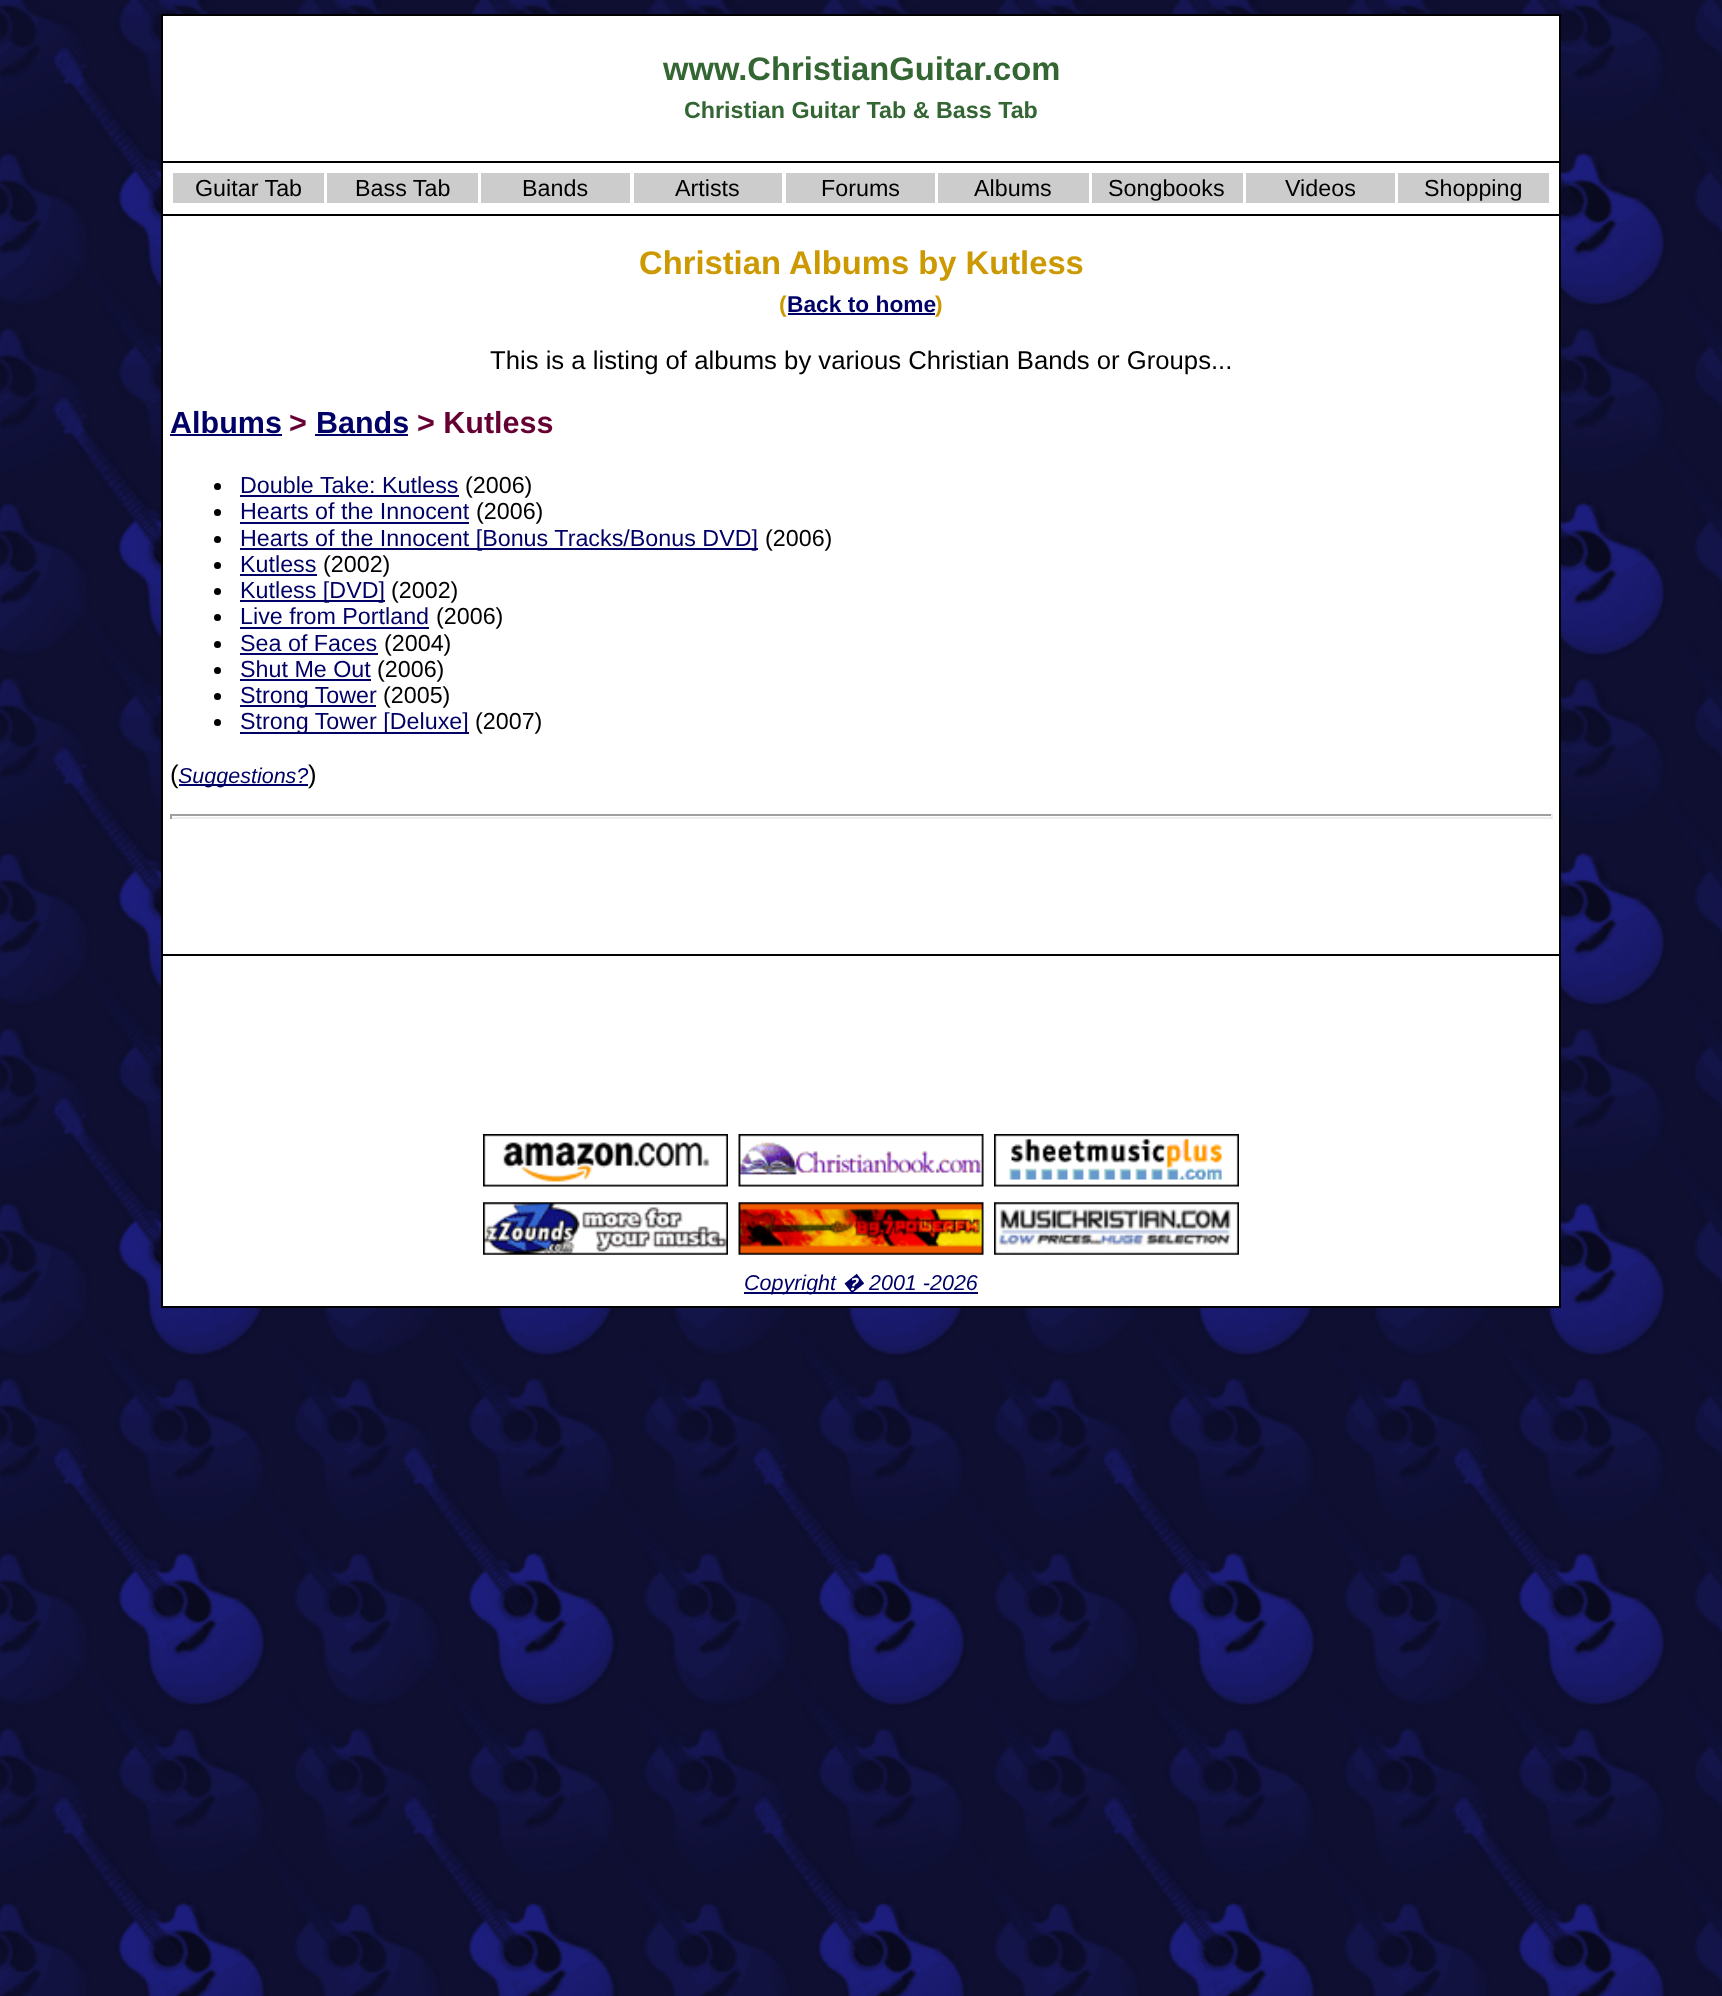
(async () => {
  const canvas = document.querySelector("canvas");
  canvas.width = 1722;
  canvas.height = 1996;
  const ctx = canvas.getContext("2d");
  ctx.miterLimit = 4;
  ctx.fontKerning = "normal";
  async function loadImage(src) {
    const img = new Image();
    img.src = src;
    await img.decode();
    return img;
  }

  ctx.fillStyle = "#ffffff";
  ctx.fillRect(0, 0, 1722, 1996);
  ctx.drawImage(await loadImage("img/1.png"), 0, 0, 1722, 1996);
  for (const [x, y, w, h, color] of [
    [163, 16, 1396, 1290, "#ffffff"],
    [161, 14, 1400, 2, "#000000"],
    [1559, 14, 2, 1293, "#000000"],
    [161, 1306, 1400, 2, "#000000"],
    [161, 14, 2, 1293, "#000000"],
    [161, 161, 1400, 2, "#000000"],
    [173, 173, 151, 30, "#cccccc"],
    [327, 173, 151, 30, "#cccccc"],
    [481, 173, 149, 30, "#cccccc"],
    [634, 173, 148, 30, "#cccccc"],
    [786, 173, 149, 30, "#cccccc"],
    [938, 173, 151, 30, "#cccccc"],
    [1092, 173, 151, 30, "#cccccc"],
    [1246, 173, 149, 30, "#cccccc"],
    [1398, 173, 151, 30, "#cccccc"],
    [161, 214, 1400, 2, "#000000"],
    [788, 313, 147, 2, "#000066"],
    [170, 434, 112, 2, "#000066"],
    [315, 434, 93, 2, "#000066"],
  ]) {
    ctx.fillStyle = color;
    ctx.fillRect(x, y, w, h);
  }
  ctx.fillStyle = "#000000";
  ctx.beginPath();
  ctx.arc(217.5, 486.5, 3.5, 0, Math.PI * 2);
  ctx.fill();
  ctx.fillStyle = "#000066";
  ctx.fillRect(240, 495, 219, 2);
  ctx.fillStyle = "#000000";
  ctx.beginPath();
  ctx.arc(217.5, 512.5, 3.5, 0, Math.PI * 2);
  ctx.fill();
  ctx.fillStyle = "#000066";
  ctx.fillRect(240, 522, 229, 2);
  ctx.fillStyle = "#000000";
  ctx.beginPath();
  ctx.arc(217.5, 539.5, 3.5, 0, Math.PI * 2);
  ctx.fill();
  ctx.fillStyle = "#000066";
  ctx.fillRect(240, 548, 518, 2);
  ctx.fillStyle = "#000000";
  ctx.beginPath();
  ctx.arc(217.5, 565.5, 3.5, 0, Math.PI * 2);
  ctx.fill();
  ctx.fillStyle = "#000066";
  ctx.fillRect(240, 574, 77, 2);
  ctx.fillStyle = "#000000";
  ctx.beginPath();
  ctx.arc(217.5, 591.5, 3.5, 0, Math.PI * 2);
  ctx.fill();
  ctx.fillStyle = "#000066";
  ctx.fillRect(240, 600, 145, 2);
  ctx.fillStyle = "#000000";
  ctx.beginPath();
  ctx.arc(217.5, 617.5, 3.5, 0, Math.PI * 2);
  ctx.fill();
  ctx.fillStyle = "#000066";
  ctx.fillRect(240, 627, 189, 2);
  ctx.fillStyle = "#000000";
  ctx.beginPath();
  ctx.arc(217.5, 644.5, 3.5, 0, Math.PI * 2);
  ctx.fill();
  ctx.fillStyle = "#000066";
  ctx.fillRect(240, 653, 138, 2);
  ctx.fillStyle = "#000000";
  ctx.beginPath();
  ctx.arc(217.5, 670.5, 3.5, 0, Math.PI * 2);
  ctx.fill();
  ctx.fillStyle = "#000066";
  ctx.fillRect(240, 679, 131, 2);
  ctx.fillStyle = "#000000";
  ctx.beginPath();
  ctx.arc(217.5, 696.5, 3.5, 0, Math.PI * 2);
  ctx.fill();
  ctx.fillStyle = "#000066";
  ctx.fillRect(240, 705, 136, 2);
  ctx.fillStyle = "#000000";
  ctx.beginPath();
  ctx.arc(217.5, 722.5, 3.5, 0, Math.PI * 2);
  ctx.fill();
  for (const [x, y, w, h, color] of [
    [240, 732, 229, 2, "#000066"],
    [179, 784, 129, 2, "#000066"],
    [170, 814, 1382, 2, "#9f9f9f"],
    [1551, 814, 2, 5, "#eeeeee"],
    [170, 817, 1382, 2, "#eeeeee"],
    [170, 814, 2, 5, "#9f9f9f"],
    [161, 954, 1400, 2, "#000000"],
  ]) {
    ctx.fillStyle = color;
    ctx.fillRect(x, y, w, h);
  }
  ctx.drawImage(await loadImage("img/2.png"), 483, 1134, 245, 53);
  ctx.drawImage(await loadImage("img/3.png"), 738, 1134, 246, 53);
  ctx.drawImage(await loadImage("img/4.png"), 994, 1134, 245, 53);
  ctx.drawImage(await loadImage("img/5.png"), 483, 1202, 245, 53);
  ctx.drawImage(await loadImage("img/6.png"), 738, 1202, 246, 53);
  ctx.drawImage(await loadImage("img/7.png"), 994, 1202, 245, 53);
  ctx.fillStyle = "#000066";
  ctx.fillRect(744, 1292, 234, 2);
  ctx.font = "bold 32.75px Liberation Sans";
  ctx.fillStyle = "#336633";
  ctx.fillText("www.ChristianGuitar.com", 663, 80);
  ctx.font = "bold 23.3px Liberation Sans";
  ctx.fillText("Christian Guitar Tab & Bass Tab", 684, 118);
  ctx.font = "23.3px Liberation Sans";
  ctx.fillStyle = "#000000";
  for (const [text, x, y] of [
    ["Guitar Tab", 195, 196],
    ["Bass Tab", 355, 196],
    ["Bands", 522, 196],
    ["Artists", 675, 196],
    ["Forums", 821, 196],
    ["Albums", 974, 196],
    ["Songbooks", 1108, 196],
    ["Videos", 1285, 196],
    ["Shopping", 1424, 196],
  ]) {
    ctx.fillText(text, x, y);
  }
  ctx.font = "bold 32.75px Liberation Sans";
  ctx.fillStyle = "#cc9900";
  ctx.fillText("Christian", 639, 274);
  ctx.fillText("Albums by Kutless", 789, 274);
  ctx.font = "bold 22.75px Liberation Sans";
  ctx.fillText("(", 779, 312);
  ctx.fillStyle = "#000066";
  ctx.fillText("Back to home", 787, 312);
  ctx.fillStyle = "#cc9900";
  ctx.fillText(")", 935, 312);
  ctx.font = "25.7px Liberation Sans";
  ctx.fillStyle = "#000000";
  ctx.fillText("This is a listing of albums by various Christian Bands or Groups...", 490, 369);
  ctx.font = "bold 30.5px Liberation Sans";
  ctx.fillStyle = "#000066";
  ctx.fillText("Albums", 170, 433);
  ctx.fillStyle = "#660033";
  ctx.fillText(">", 289, 433);
  ctx.fillStyle = "#000066";
  ctx.fillText("Bands", 316, 433);
  ctx.fillStyle = "#660033";
  ctx.fillText("> Kutless", 417, 433);
  ctx.font = "23.3px Liberation Sans";
  ctx.fillStyle = "#000066";
  ctx.fillText("Double Take: Kutless", 240, 493);
  ctx.fillStyle = "#000000";
  ctx.fillText("(2006)", 465, 493);
  ctx.fillStyle = "#000066";
  ctx.fillText("Hearts of the Innocent", 240, 519);
  ctx.fillStyle = "#000000";
  ctx.fillText("(2006)", 476, 519);
  ctx.fillStyle = "#000066";
  ctx.fillText("Hearts of the Innocent [Bonus Tracks/Bonus DVD]", 240, 546);
  ctx.fillStyle = "#000000";
  ctx.fillText("(2006)", 765, 546);
  ctx.fillStyle = "#000066";
  ctx.fillText("Kutless", 240, 572);
  ctx.fillStyle = "#000000";
  ctx.fillText("(2002)", 323, 572);
  ctx.fillStyle = "#000066";
  ctx.fillText("Kutless [DVD]", 240, 598);
  ctx.fillStyle = "#000000";
  ctx.fillText("(2002)", 391, 598);
  ctx.fillStyle = "#000066";
  ctx.fillText("Live from Portland", 240, 624);
  ctx.fillStyle = "#000000";
  ctx.fillText("(2006)", 436, 624);
  ctx.fillStyle = "#000066";
  ctx.fillText("Sea of Faces", 240, 651);
  ctx.fillStyle = "#000000";
  ctx.fillText("(2004)", 384, 651);
  ctx.fillStyle = "#000066";
  ctx.fillText("Shut Me Out", 240, 677);
  ctx.fillStyle = "#000000";
  ctx.fillText("(2006)", 377, 677);
  ctx.fillStyle = "#000066";
  ctx.fillText("Strong Tower", 240, 703);
  ctx.fillStyle = "#000000";
  ctx.fillText("(2005)", 383, 703);
  ctx.fillStyle = "#000066";
  ctx.fillText("Strong Tower [Deluxe]", 240, 729);
  ctx.fillStyle = "#000000";
  ctx.fillText("(2007)", 475, 729);
  ctx.font = "25.7px Liberation Sans";
  ctx.fillText("(", 170, 783);
  ctx.font = "italic 21.5px Liberation Sans";
  ctx.fillStyle = "#000066";
  ctx.fillText("Suggestions?", 178, 783);
  ctx.font = "25.7px Liberation Sans";
  ctx.fillStyle = "#000000";
  ctx.fillText(")", 308, 783);
  ctx.font = "italic 21.5px Liberation Sans";
  ctx.fillStyle = "#000066";
  ctx.fillText("Copyright", 744, 1290);
  ctx.font = "italic 21.5px Noto Sans";
  ctx.fillText("�", 842, 1290);
  ctx.font = "italic 21.5px Liberation Sans";
  ctx.fillText("2001 -2026", 869, 1290);
})();
